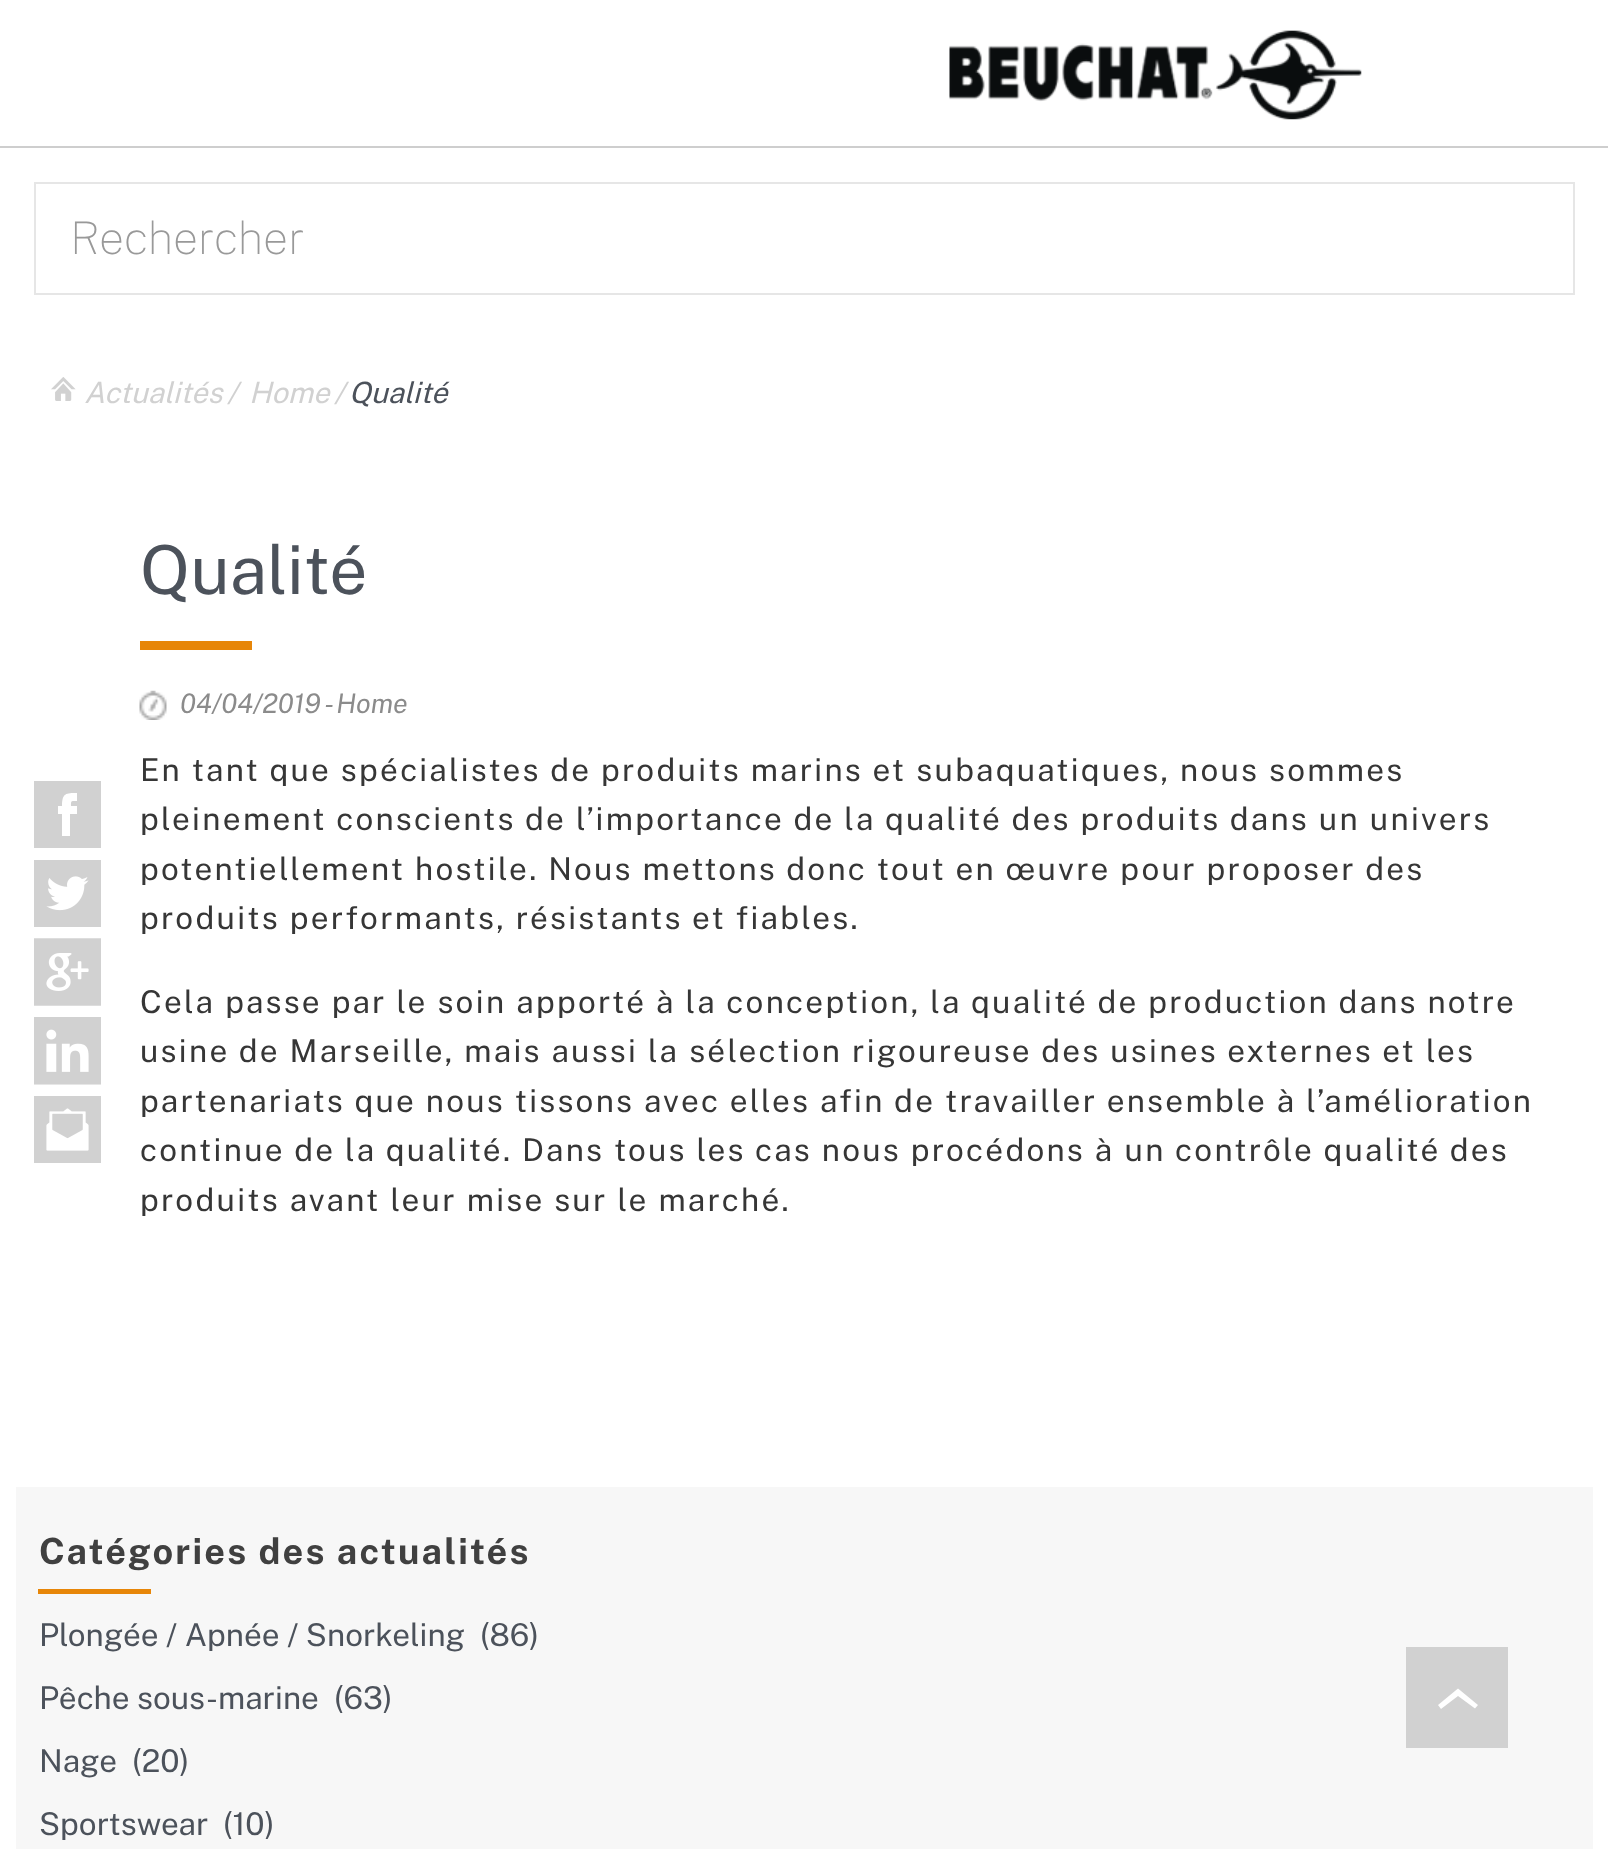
(async () => {
  const canvas = document.querySelector("canvas");
  canvas.width = 1608;
  canvas.height = 1849;
  const ctx = canvas.getContext("2d");
  ctx.miterLimit = 4;
  ctx.fontKerning = "normal";
  async function loadImage(src) {
    const img = new Image();
    img.src = src;
    await img.decode();
    return img;
  }
  let path;

  ctx.fillStyle = "#ffffff";
  ctx.fillRect(0, 0, 1608, 1849);
  ctx.drawImage(await loadImage("img/1.png"), 949, 30, 413, 90);
  ctx.fillStyle = "#cecece";
  ctx.fillRect(0, 146, 1608, 2);
  ctx.strokeStyle = "#e6e6e6";
  ctx.lineWidth = 2;
  ctx.strokeRect(35, 183, 1539, 111);
  ctx.drawImage(await loadImage("img/2.png"), 51, 377, 25, 24);
  ctx.fillStyle = "#e78608";
  ctx.fillRect(140, 641, 112, 9);
  ctx.drawImage(await loadImage("img/3.png"), 139, 690, 28, 30);
  ctx.fillStyle = "#d1d1d1";
  path = new Path2D("M34 848H101V781H34ZM77 814H70V836H62V814H58V806H62C62 793 66 793 77 793V801C71 801 71 800 71 806H77Z");
  ctx.fill(path);
  ctx.drawImage(await loadImage("img/4.png"), 34, 860, 67, 67);
  ctx.drawImage(await loadImage("img/5.png"), 34, 938, 67, 68);
  ctx.drawImage(await loadImage("img/6.png"), 34, 1017, 67, 68);
  ctx.drawImage(await loadImage("img/7.png"), 34, 1096, 67, 67);
  for (const [x, y, w, h, color] of [
    [16, 1487, 1577, 362, "#f7f7f7"],
    [38, 1589, 113, 5, "#e78608"],
    [1406, 1647, 102, 101, "#d1d1d1"],
  ]) {
    ctx.fillStyle = color;
    ctx.fillRect(x, y, w, h);
  }
  ctx.fillStyle = "#ffffff";
  path = new Path2D("M1441 1709L1458 1696L1475 1708.5L1478 1705L1458 1688.5L1438 1705Z");
  ctx.fill(path);
  ctx.font = "100 45px Public Sans";
  ctx.fillStyle = "#999999";
  ctx.fillText("Rechercher", 70, 254);
  ctx.font = "italic 29.25px Public Sans";
  ctx.fillStyle = "#d1d1d1";
  for (const [text, x, y] of [
    ["Actualités", 84, 403],
    ["/", 227, 403],
    ["Home", 249, 403],
    ["/", 334, 403],
  ]) {
    ctx.fillText(text, x, y);
  }
  ctx.fillStyle = "#4c525b";
  ctx.fillText("Qualité", 349, 403);
  ctx.font = "67.5px Public Sans";
  ctx.fillText("Qualité", 140, 594);
  ctx.font = "italic 27px 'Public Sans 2'";
  ctx.fillStyle = "#8b8b8b";
  ctx.fillText("04/04/2019 - Home", 180, 713);
  ctx.letterSpacing = "2.25px";
  ctx.font = "31.5px Public Sans";
  ctx.fillStyle = "#363636";
  for (const [text, x, y] of [
    ["En tant que spécialistes de produits marins et subaquatiques, nous sommes", 140, 781],
    ["pleinement conscients de l’importance de la qualité des produits dans un univers", 140, 830],
    ["potentiellement hostile. Nous mettons donc tout en œuvre pour proposer des", 140, 880],
    ["produits performants, résistants et fiables.", 140, 929],
    ["Cela passe par le soin apporté à la conception, la qualité de production dans notre", 140, 1013],
    ["usine de Marseille, mais aussi la sélection rigoureuse des usines externes et les", 140, 1062],
    ["partenariats que nous tissons avec elles afin de travailler ensemble à l’amélioration", 140, 1112],
    ["continue de la qualité. Dans tous les cas nous procédons à un contrôle qualité des", 140, 1161],
    ["produits avant leur mise sur le marché.", 140, 1211],
  ]) {
    ctx.fillText(text, x, y);
  }
  ctx.font = "bold 36px Public Sans";
  ctx.fillStyle = "#404040";
  ctx.fillText("Catégories des actualités", 39, 1564);
  ctx.letterSpacing = "0px";
  ctx.font = "31.5px Public Sans";
  ctx.fillStyle = "#4c525b";
  for (const [text, x, y] of [
    ["Plongée / Apnée / Snorkeling", 39, 1646],
    ["(86)", 480, 1646],
    ["Pêche sous-marine", 39, 1709],
    ["(63)", 334, 1709],
    ["Nage", 39, 1772],
    ["(20)", 132, 1772],
    ["Sportswear", 39, 1835],
    ["(10)", 223, 1835],
  ]) {
    ctx.fillText(text, x, y);
  }
})();
